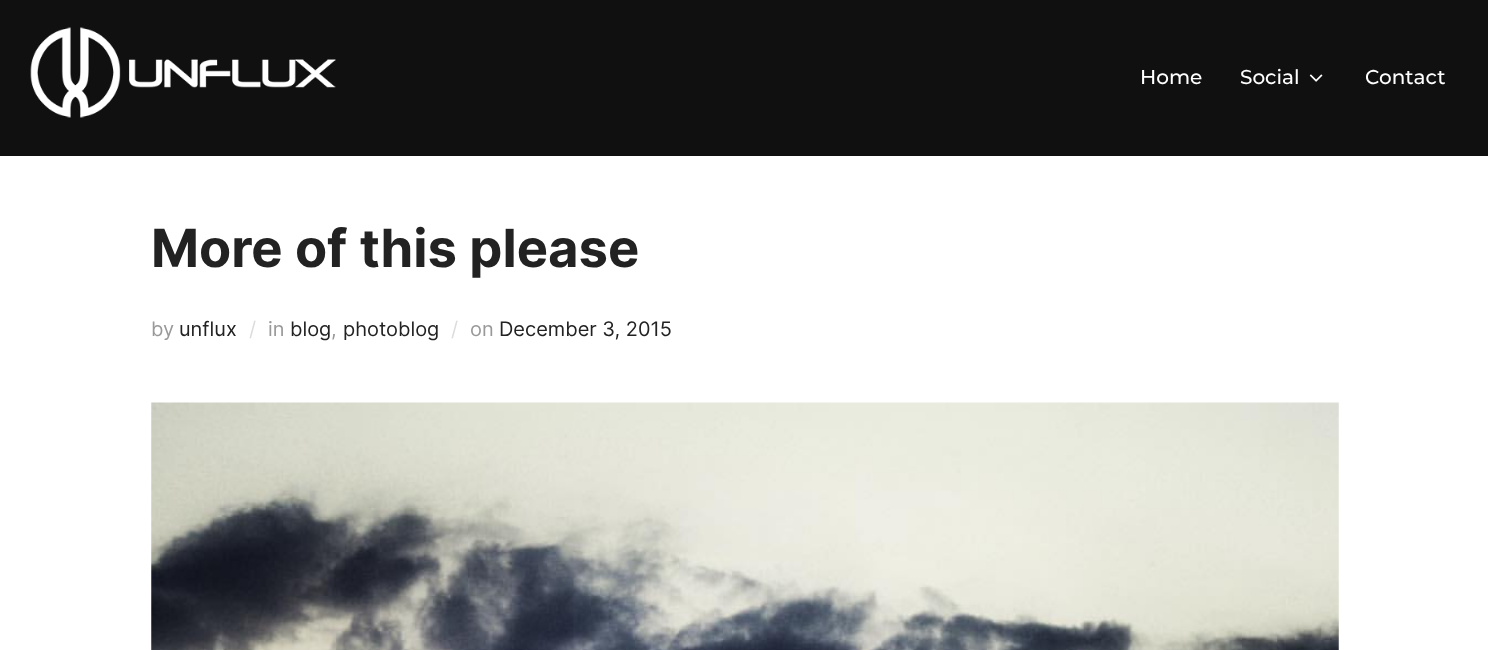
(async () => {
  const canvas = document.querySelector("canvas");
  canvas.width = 1488;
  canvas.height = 650;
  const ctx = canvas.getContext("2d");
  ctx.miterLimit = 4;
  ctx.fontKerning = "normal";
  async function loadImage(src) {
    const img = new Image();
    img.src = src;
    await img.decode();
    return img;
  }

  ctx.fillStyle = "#ffffff";
  ctx.fillRect(0, 0, 1488, 650);
  ctx.fillStyle = "#101010";
  ctx.fillRect(0, 0, 1488, 156);
  ctx.drawImage(await loadImage("img/1.png"), 30, 27, 306, 91);
  ctx.drawImage(await loadImage("img/2.png"), 1309, 74, 14, 8);
  ctx.drawImage(await loadImage("img/3.png"), 151, 402, 1188, 248);
  ctx.font = "500 20px Montserrat";
  ctx.fillStyle = "#ffffff";
  for (const [text, x, y] of [
    ["Home", 1140, 84],
    ["Social", 1240, 84],
    ["Contact", 1365, 84],
  ]) {
    ctx.fillText(text, x, y);
  }
  ctx.font = "bold 52.5px Inter";
  ctx.fillStyle = "#222222";
  ctx.fillText("More of this please", 151, 267);
  ctx.font = "20px Inter";
  ctx.fillStyle = "#999999";
  ctx.fillText("by", 151, 336);
  ctx.fillStyle = "#222222";
  ctx.fillText("unflux", 179, 336);
  ctx.fillStyle = "#dbdddd";
  ctx.fillText("/", 249, 336);
  ctx.fillStyle = "#999999";
  ctx.fillText("in", 268, 336);
  ctx.fillStyle = "#222222";
  ctx.fillText("blog", 290, 336);
  ctx.fillStyle = "#999999";
  ctx.fillText(",", 331, 336);
  ctx.fillStyle = "#222222";
  ctx.fillText("photoblog", 343, 336);
  ctx.fillStyle = "#dbdddd";
  ctx.fillText("/", 451, 336);
  ctx.fillStyle = "#999999";
  ctx.fillText("on", 470, 336);
  ctx.fillStyle = "#222222";
  ctx.fillText("December 3, 2015", 499, 336);
})();
